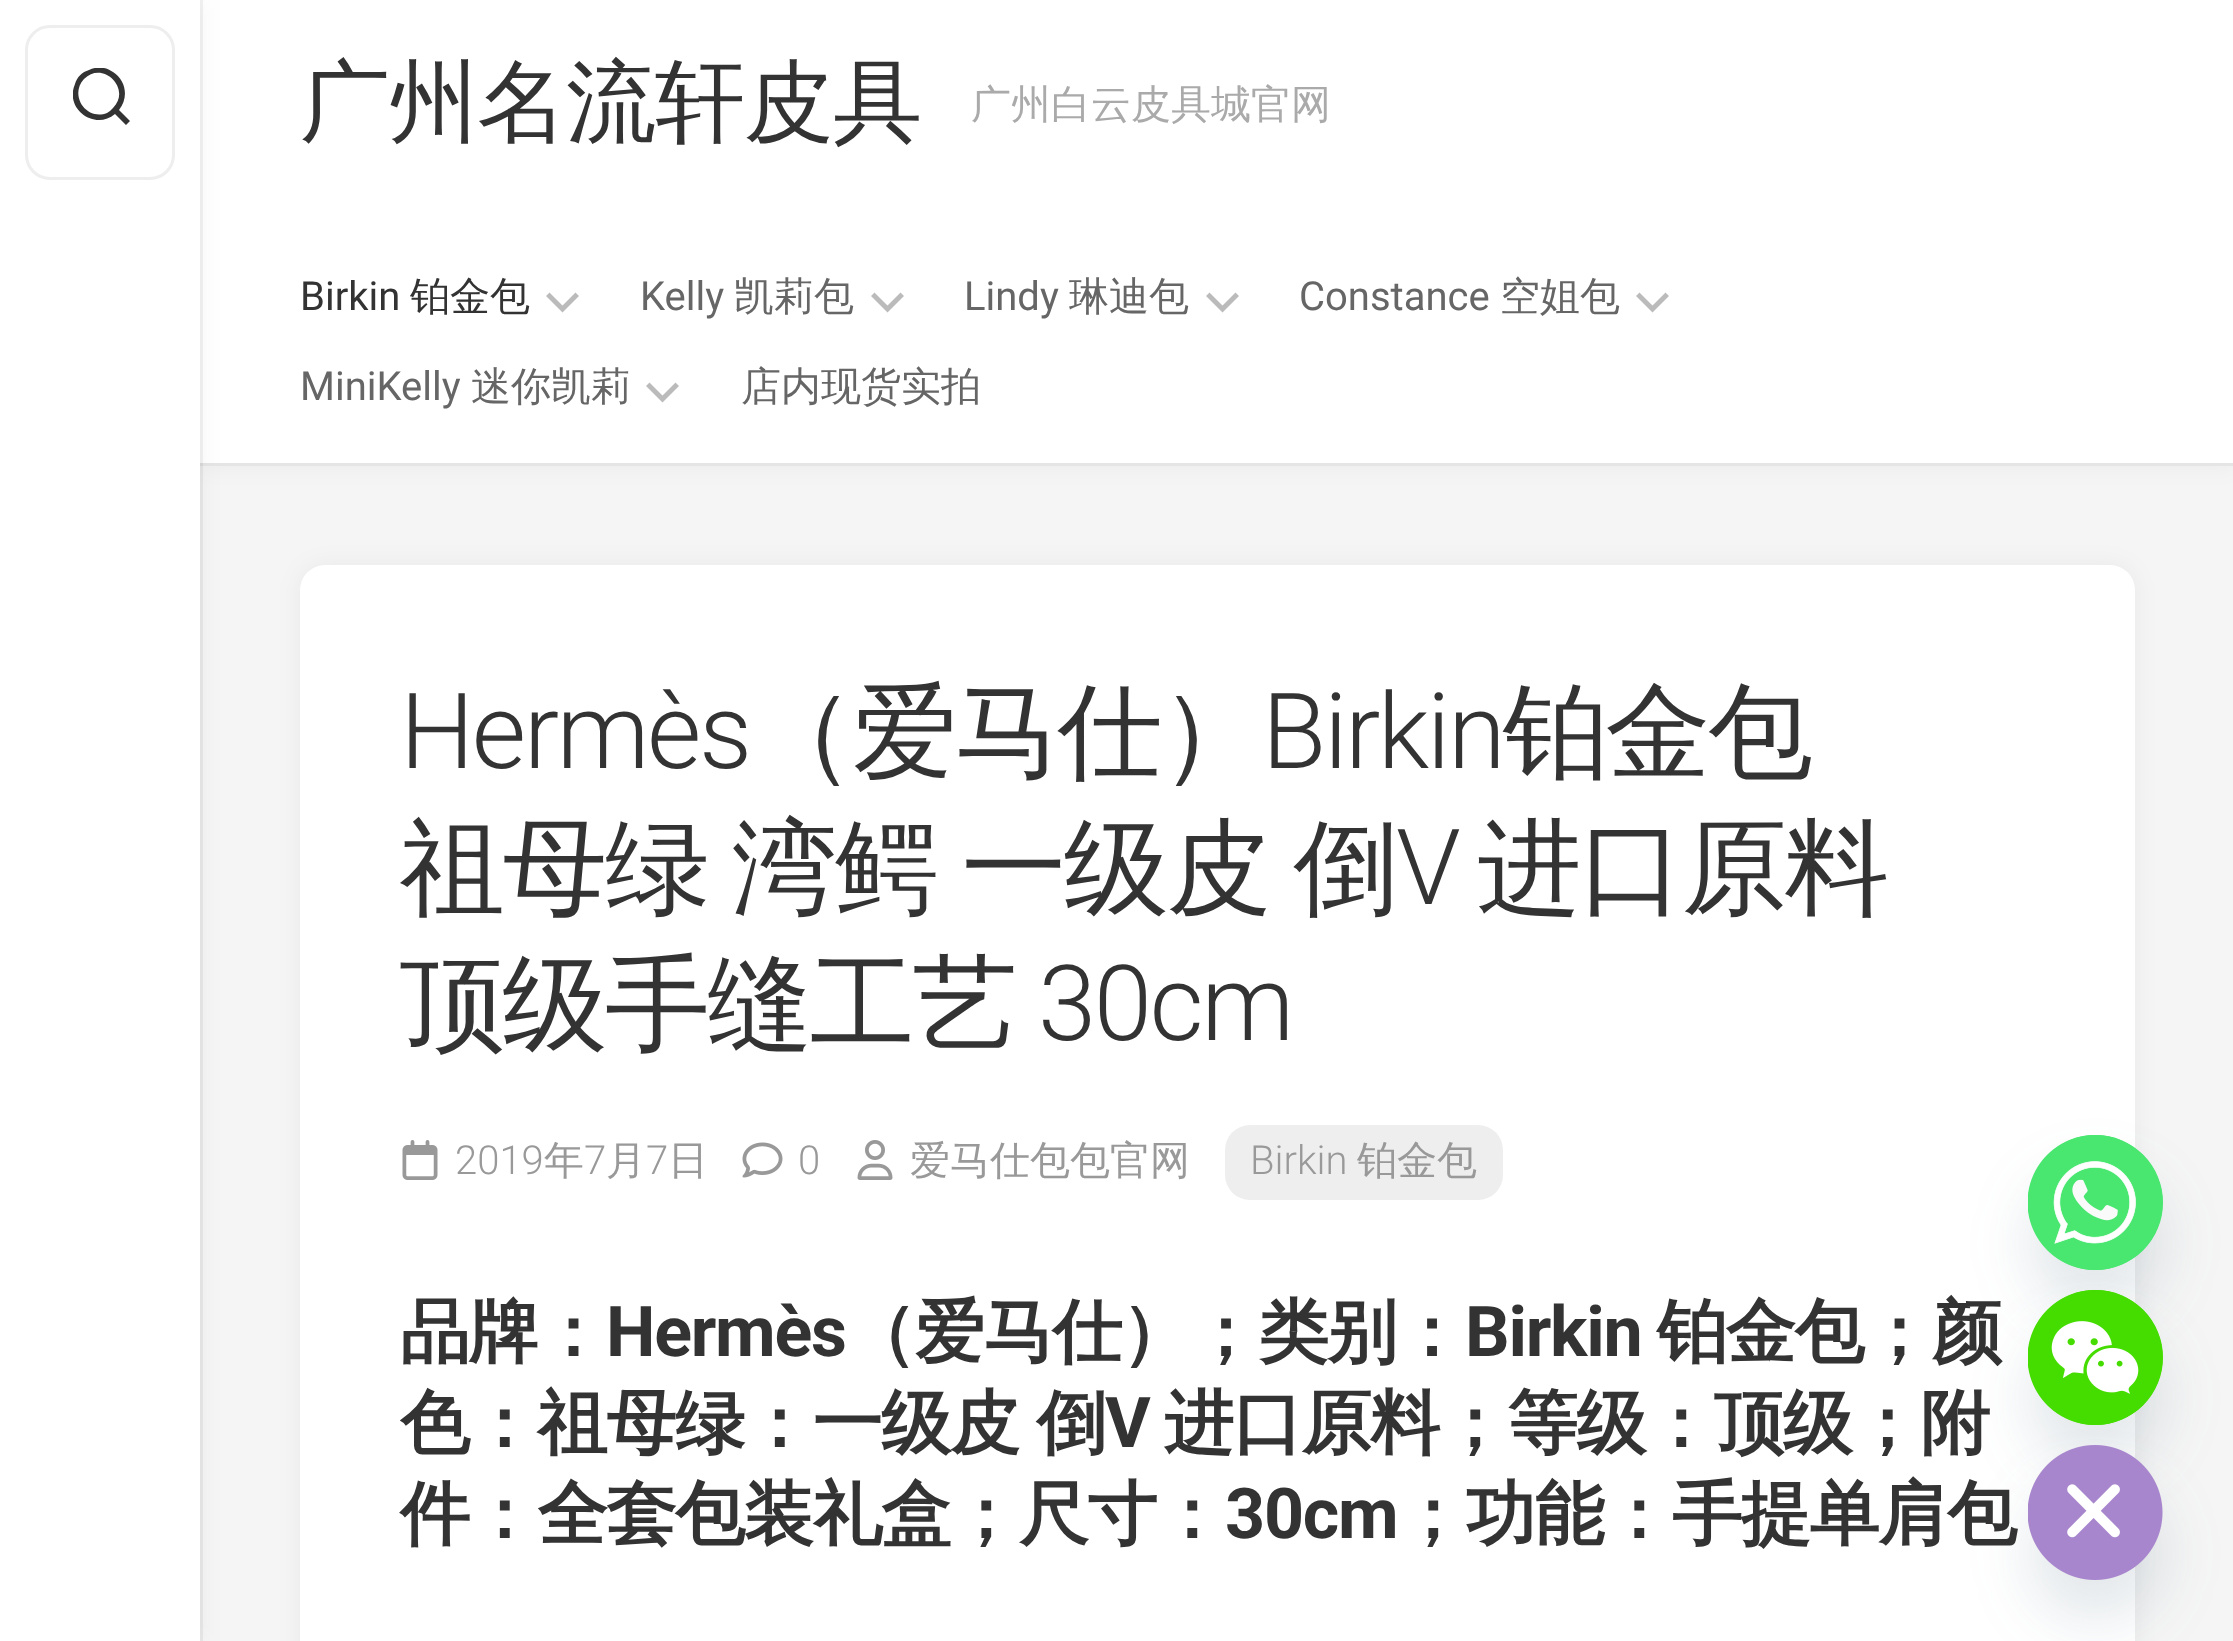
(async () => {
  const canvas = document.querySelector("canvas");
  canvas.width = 2233;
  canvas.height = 1641;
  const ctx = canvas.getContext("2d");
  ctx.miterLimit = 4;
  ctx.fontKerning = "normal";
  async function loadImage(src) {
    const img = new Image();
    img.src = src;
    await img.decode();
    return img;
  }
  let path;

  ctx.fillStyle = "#f5f5f5";
  ctx.fillRect(0, 0, 2233, 1641);
  ctx.fillStyle = "#ffffff";
  ctx.fillRect(200, 0, 2033, 3);
  ctx.save();
  ctx.beginPath();
  ctx.rect(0, 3, 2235, 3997);
  ctx.clip();
  ctx.fillStyle = "rgba(0, 0, 0, 0.05)";
  ctx.filter = "blur(12.5px)";
  ctx.beginPath();
  ctx.rect(200, 3, 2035, 462);
  ctx.fill();
  ctx.filter = "none";
  ctx.restore();
  ctx.fillRect(200, 3, 2033, 460);
  ctx.fillStyle = "#e5e5e5";
  ctx.fillRect(200, 463, 2033, 3);
  ctx.fillStyle = "rgba(0, 0, 0, 0.05)";
  path = new Path2D("M3 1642V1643H203V0H200V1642Z");
  ctx.fill(path);
  ctx.filter = "blur(12.5px)";
  ctx.beginPath();
  ctx.rect(0, 0, 200, 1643);
  ctx.fill();
  ctx.filter = "none";
  ctx.fillStyle = "#ffffff";
  ctx.fillRect(0, 0, 200, 1641);
  ctx.beginPath();
  ctx.roundRect(26.5, 26.5, 147, 152, 23.5);
  ctx.strokeStyle = "#eeeeee";
  ctx.lineWidth = 3;
  ctx.stroke();
  ctx.save();
  ctx.beginPath();
  ctx.rect(73, 68, 57, 57);
  ctx.clip();
  ctx.fillStyle = "#333333";
  path = new Path2D("M119 110L130 121L126 125L115 114C95 131 64 109 75 84C77 77 82 72 89 70C97 66 106 67 113 72C126 80 129 98 119 110ZM113 108C132 89 103 60 84 79C69 95 86 121 107 113C109 112 111 110 113 108Z");
  ctx.fill(path);
  ctx.restore();
  ctx.fillStyle = "#bbbbbb";
  path = new Path2D("M562.5 305.5L575.5 292.5L579 296L562.5 312.5L546 296L549.5 292.5Z");
  ctx.fill(path, "evenodd");
  path = new Path2D("M887.5 305.5L900.5 292.5L904 296L887.5 312.5L871 296L874.5 292.5Z");
  ctx.fill(path, "evenodd");
  path = new Path2D("M1222.5 305.5L1235.5 292.5L1239 296L1222.5 312.5L1206 296L1209.5 292.5Z");
  ctx.fill(path, "evenodd");
  path = new Path2D("M1652.5 305.5L1665.5 292.5L1669 296L1652.5 312.5L1636 296L1639.5 292.5Z");
  ctx.fill(path, "evenodd");
  path = new Path2D("M662.5 395.5L675.5 382.5L679 386L662.5 402.5L646 386L649.5 382.5Z");
  ctx.fill(path, "evenodd");
  ctx.fillStyle = "rgba(0, 0, 0, 0.05)";
  ctx.filter = "blur(12.5px)";
  ctx.beginPath();
  ctx.roundRect(300, 565, 1835, 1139, 25);
  ctx.fill();
  ctx.filter = "none";
  ctx.fillStyle = "#ffffff";
  ctx.beginPath();
  ctx.roundRect(300, 565, 1835, 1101, 25);
  ctx.fill();
  ctx.drawImage(await loadImage("img/1.png"), 402, 1140, 36, 40);
  ctx.drawImage(await loadImage("img/2.png"), 742, 1142, 41, 36);
  ctx.drawImage(await loadImage("img/3.png"), 857, 1140, 36, 40);
  ctx.fillStyle = "#eeeeee";
  ctx.beginPath();
  ctx.roundRect(1225, 1125, 278, 75, 25);
  ctx.fill();
  ctx.fillStyle = "rgba(73, 104, 126, 0.16)";
  ctx.filter = "blur(30px)";
  ctx.beginPath();
  ctx.roundRect(2028, 1175, 135, 135, 67.5);
  ctx.fill();
  ctx.filter = "none";
  ctx.fillStyle = "#49e670";
  ctx.beginPath();
  ctx.arc(2095.5, 1202.5, 67.5, 0, Math.PI * 2);
  ctx.fill();
  ctx.drawImage(await loadImage("img/4.png"), 2028, 1135, 135, 135);
  ctx.fillStyle = "rgba(73, 104, 126, 0.16)";
  ctx.filter = "blur(30px)";
  ctx.beginPath();
  ctx.roundRect(2028, 1330, 135, 135, 67.5);
  ctx.fill();
  ctx.filter = "none";
  ctx.fillStyle = "#45dc00";
  ctx.beginPath();
  ctx.arc(2095.5, 1357.5, 67.5, 0, Math.PI * 2);
  ctx.fill();
  ctx.drawImage(await loadImage("img/5.png"), 2028, 1290, 135, 135);
  ctx.fillStyle = "rgba(73, 104, 126, 0.16)";
  ctx.filter = "blur(30px)";
  ctx.beginPath();
  ctx.roundRect(2028, 1485, 135, 135, 67.5);
  ctx.fill();
  ctx.filter = "none";
  ctx.drawImage(await loadImage("img/6.png"), 2028, 1445, 135, 135);
  ctx.letterSpacing = "-1.25px";
  ctx.font = "500 90px WenQuanYi Zen Hei";
  ctx.fillStyle = "#333333";
  ctx.fillText("广州名流轩皮具", 300, 133);
  ctx.letterSpacing = "0px";
  ctx.font = "500 40px WenQuanYi Zen Hei";
  ctx.fillStyle = "#aaaaaa";
  ctx.fillText("广州白云皮具城官网", 971, 118);
  ctx.font = "40px Roboto";
  ctx.fillStyle = "#333333";
  ctx.fillText("Birkin", 300, 310);
  ctx.font = "500 40px WenQuanYi Zen Hei";
  ctx.fillText("铂金包", 410, 310);
  ctx.font = "40px Roboto";
  ctx.fillStyle = "#666666";
  ctx.fillText("Kelly", 640, 310);
  ctx.font = "500 40px WenQuanYi Zen Hei";
  ctx.fillText("凯莉包", 734, 310);
  ctx.font = "40px Roboto";
  ctx.fillText("Lindy", 964, 310);
  ctx.font = "500 40px WenQuanYi Zen Hei";
  ctx.fillText("琳迪包", 1069, 310);
  ctx.font = "40px Roboto";
  ctx.fillText("Constance", 1299, 310);
  ctx.font = "500 40px WenQuanYi Zen Hei";
  ctx.fillText("空姐包", 1500, 310);
  ctx.font = "40px Roboto";
  ctx.fillText("MiniKelly", 300, 400);
  ctx.font = "500 40px WenQuanYi Zen Hei";
  ctx.fillText("迷你凯莉", 471, 400);
  ctx.fillText("店内现货实拍", 741, 400);
  ctx.letterSpacing = "-2.5px";
  ctx.font = "300 105px Roboto";
  ctx.fillStyle = "#333333";
  ctx.fillText("Hermès", 400, 768);
  ctx.font = "500 105px WenQuanYi Zen Hei";
  ctx.fillText("（爱马仕）", 750, 768);
  ctx.font = "300 105px Roboto";
  ctx.fillText("Birkin", 1262, 768);
  ctx.font = "500 105px WenQuanYi Zen Hei";
  ctx.fillText("铂金包", 1503, 768);
  ctx.wordSpacing = "-4.5px";
  ctx.fillText("祖母绿 湾鳄 一级皮 倒", 400, 904);
  ctx.wordSpacing = "0px";
  ctx.font = "300 105px Roboto";
  ctx.fillText("V", 1396, 904);
  ctx.font = "500 105px WenQuanYi Zen Hei";
  ctx.fillText("进口原料", 1477, 904);
  ctx.fillText("顶级手缝工艺", 400, 1040);
  ctx.font = "300 105px Roboto";
  ctx.fillText("30cm", 1038, 1040);
  ctx.letterSpacing = "0px";
  ctx.font = "300 40px Roboto";
  ctx.fillStyle = "#999999";
  ctx.fillText("2019", 455, 1174);
  ctx.font = "500 40px WenQuanYi Zen Hei";
  ctx.fillText("年", 544, 1174);
  ctx.font = "300 40px Roboto";
  ctx.fillText("7", 584, 1174);
  ctx.font = "500 40px WenQuanYi Zen Hei";
  ctx.fillText("月", 606, 1174);
  ctx.font = "300 40px Roboto";
  ctx.fillText("7", 646, 1174);
  ctx.font = "500 40px WenQuanYi Zen Hei";
  ctx.fillText("日", 668, 1174);
  ctx.font = "300 40px Roboto";
  ctx.fillText("0", 798, 1174);
  ctx.font = "500 40px WenQuanYi Zen Hei";
  ctx.fillText("爱马仕包包官网", 910, 1174);
  ctx.font = "300 40px Roboto";
  ctx.fillText("Birkin", 1250, 1174);
  ctx.font = "500 40px WenQuanYi Zen Hei";
  ctx.fillText("铂金包", 1357, 1174);
  ctx.letterSpacing = "-1.25px";
  ctx.font = "bold 70px WenQuanYi Zen Hei";
  ctx.fillStyle = "#333333";
  ctx.fillText("品牌：", 400, 1356);
  ctx.font = "bold 70px Roboto";
  ctx.fillText("Hermès", 606, 1356);
  ctx.font = "bold 70px WenQuanYi Zen Hei";
  ctx.fillText("（爱马仕）；类别：", 846, 1356);
  ctx.font = "bold 70px Roboto";
  ctx.fillText("Birkin", 1465, 1356);
  ctx.font = "bold 70px WenQuanYi Zen Hei";
  ctx.fillText("铂金包；颜", 1657, 1356);
  ctx.wordSpacing = "-2px";
  ctx.fillText("色：祖母绿：一级皮 倒", 400, 1447);
  ctx.wordSpacing = "0px";
  ctx.font = "bold 70px Roboto";
  ctx.fillText("V", 1105, 1447);
  ctx.font = "bold 70px WenQuanYi Zen Hei";
  ctx.fillText("进口原料；等级：顶级；附", 1164, 1447);
  ctx.fillText("件：全套包装礼盒；尺寸：", 400, 1538);
  ctx.font = "bold 70px Roboto";
  ctx.fillText("30cm", 1225, 1538);
  ctx.font = "bold 70px WenQuanYi Zen Hei";
  ctx.fillText("；功能：手提单肩包", 1397, 1538);
})();
